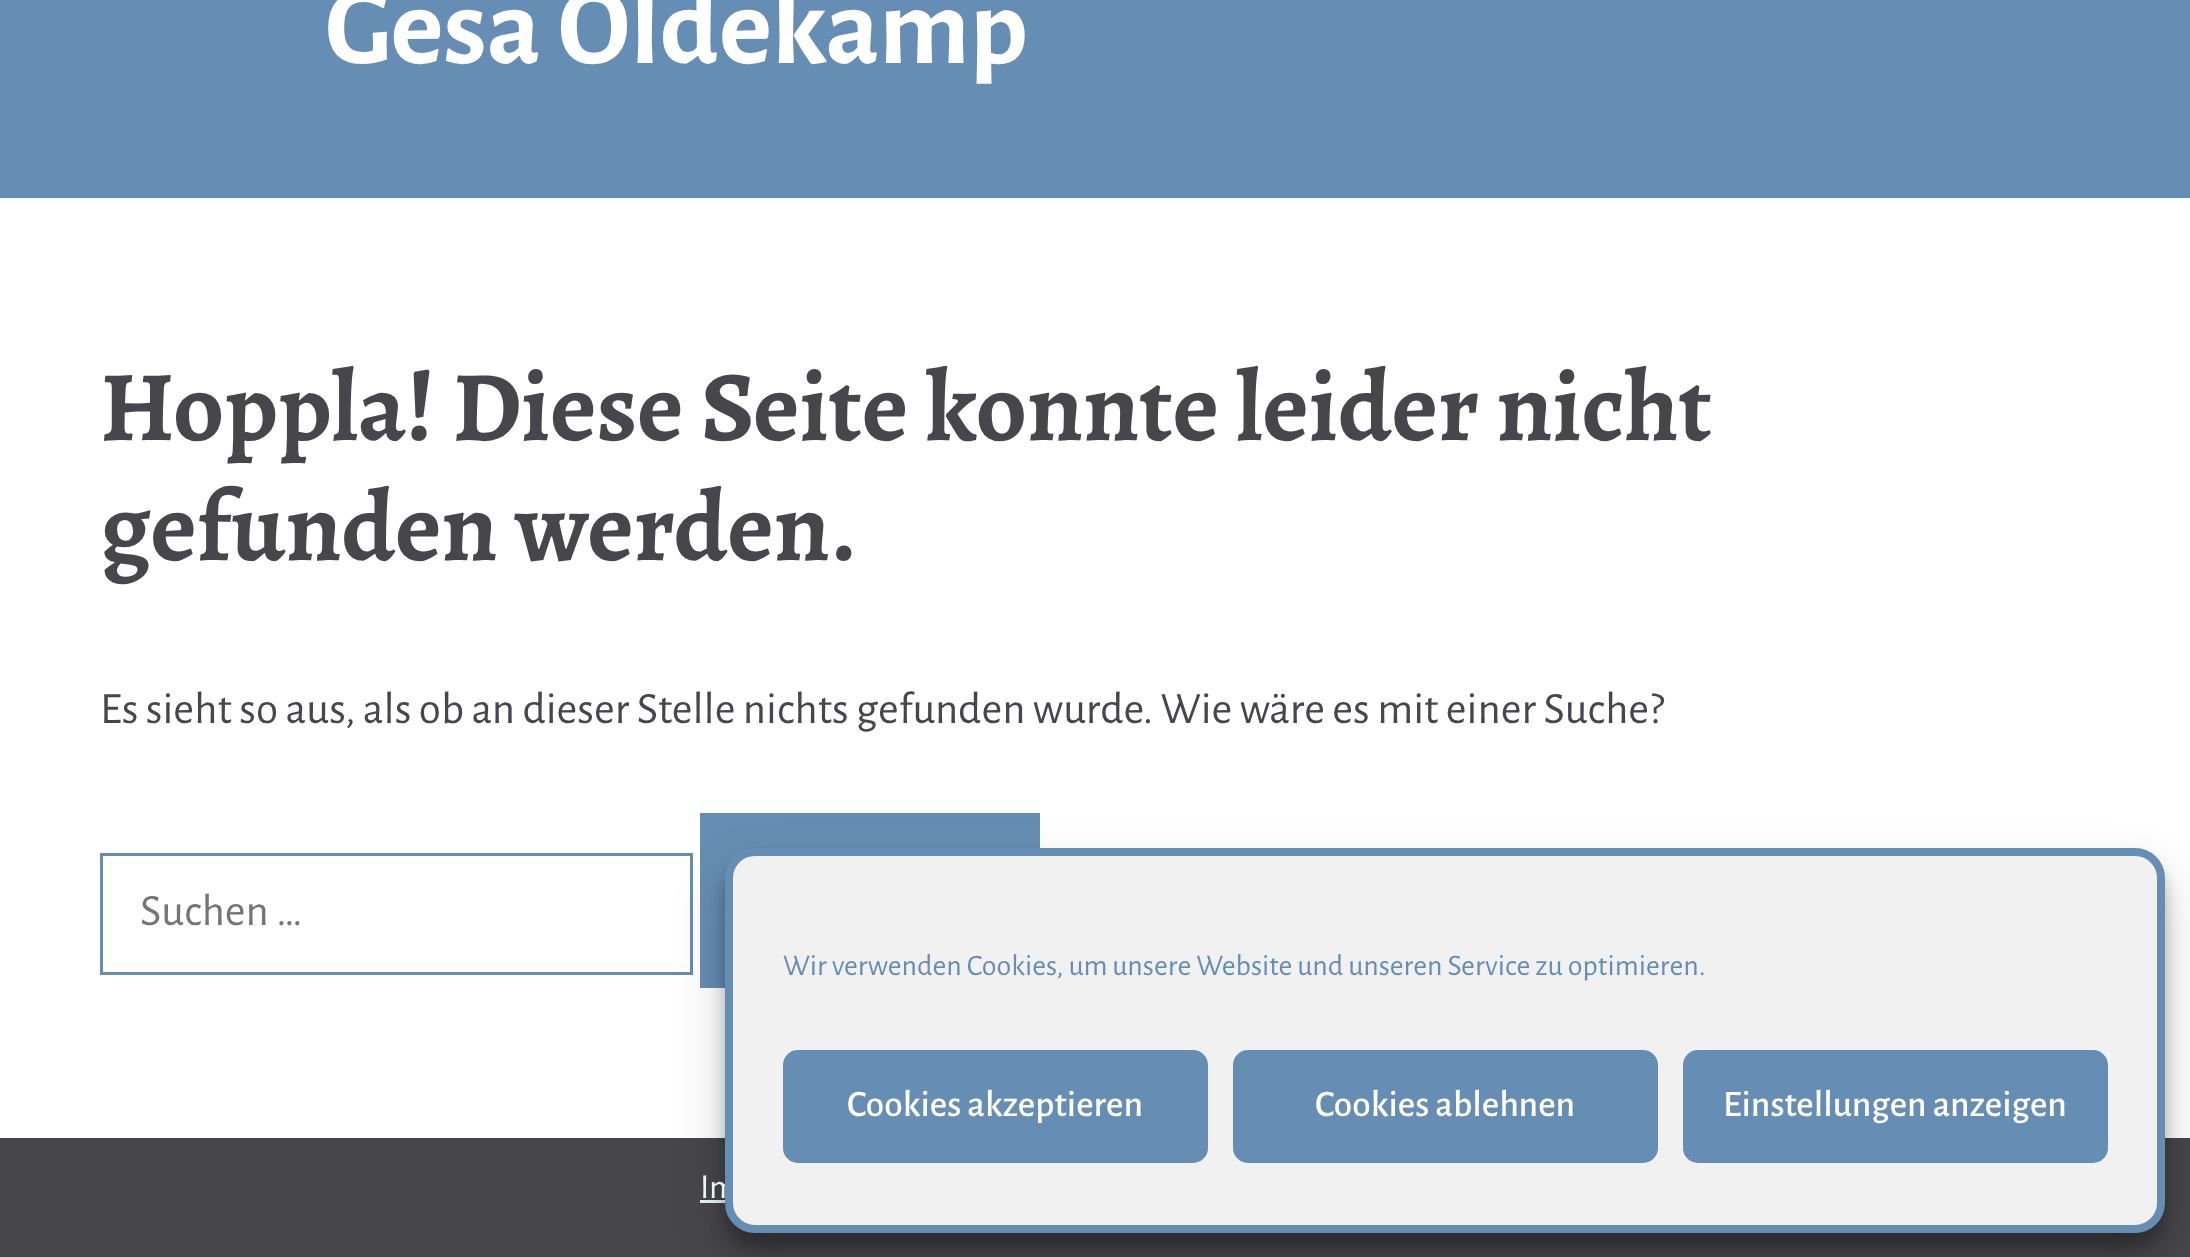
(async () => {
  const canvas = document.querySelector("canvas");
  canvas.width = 2190;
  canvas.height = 1257;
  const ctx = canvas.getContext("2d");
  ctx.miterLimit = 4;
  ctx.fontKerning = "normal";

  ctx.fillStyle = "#ffffff";
  ctx.fillRect(0, 0, 2190, 1257);
  ctx.fillStyle = "#668db3";
  ctx.fillRect(0, 0, 2190, 198);
  ctx.strokeStyle = "#668db3";
  ctx.lineWidth = 3;
  ctx.strokeRect(101.5, 854.5, 590, 119);
  for (const [x, y, w, h, color] of [
    [700, 813, 340, 175, "#668db3"],
    [0, 1138, 2190, 119, "#47464a"],
    [700, 1200, 25, 3, "#edf4f7"],
  ]) {
    ctx.fillStyle = color;
    ctx.fillRect(x, y, w, h);
  }
  ctx.fillStyle = "rgba(0, 0, 0, 0.23)";
  ctx.filter = "blur(7.5px)";
  ctx.beginPath();
  ctx.roundRect(725, 863, 1440, 385, 30);
  ctx.fill();
  ctx.filter = "none";
  ctx.fillStyle = "rgba(0, 0, 0, 0.19)";
  ctx.filter = "blur(25px)";
  ctx.beginPath();
  ctx.roundRect(725, 873, 1440, 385, 30);
  ctx.fill();
  ctx.filter = "none";
  ctx.font = "bold 112.5px Alegreya Sans";
  ctx.fillStyle = "#ffffff";
  ctx.fillText("Gesa Oldekamp", 325, 63);
  ctx.font = "bold 100px Alegreya";
  ctx.fillStyle = "#47464a";
  ctx.fillText("Hoppla! Diese Seite konnte leider nicht", 100, 440);
  ctx.fillText("gefunden werden.", 100, 560);
  ctx.font = "45px Alegreya Sans";
  ctx.fillText("Es sieht so aus, als ob an dieser Stelle nichts gefunden wurde. Wie wäre es mit einer Suche?", 100, 723);
  ctx.fillStyle = "#757575";
  ctx.fillText("Suchen …", 140, 925);
  ctx.font = "35px Alegreya Sans";
  ctx.fillStyle = "#edf4f7";
  ctx.fillText("Im", 700, 1198);
  ctx.fillStyle = "#f1f1f1";
  ctx.beginPath();
  ctx.roundRect(729, 852, 1432, 377, 26);
  ctx.fill();
  ctx.lineWidth = 8;
  ctx.stroke();
  ctx.font = "30px Alegreya Sans";
  ctx.fillStyle = "#668db3";
  ctx.fillText("Wir verwenden Cookies, um unsere Website und unseren Service zu optimieren.", 783, 975);
  ctx.beginPath();
  ctx.roundRect(1684.5, 1051.5, 422, 110, 13.5);
  ctx.fill();
  ctx.lineWidth = 3;
  ctx.stroke();
  ctx.font = "500 37.5px Alegreya Sans";
  ctx.fillStyle = "#ffffff";
  ctx.fillText("Einstellungen anzeigen", 1723, 1116);
  ctx.fillStyle = "#668db3";
  ctx.beginPath();
  ctx.roundRect(1234.5, 1051.5, 422, 110, 13.5);
  ctx.fill();
  ctx.stroke();
  ctx.fillStyle = "#ffffff";
  ctx.fillText("Cookies ablehnen", 1315, 1116);
  ctx.fillStyle = "#668db3";
  ctx.beginPath();
  ctx.roundRect(784.5, 1051.5, 422, 110, 13.5);
  ctx.fill();
  ctx.stroke();
  ctx.fillStyle = "#ffffff";
  ctx.fillText("Cookies akzeptieren", 847, 1116);
})();
